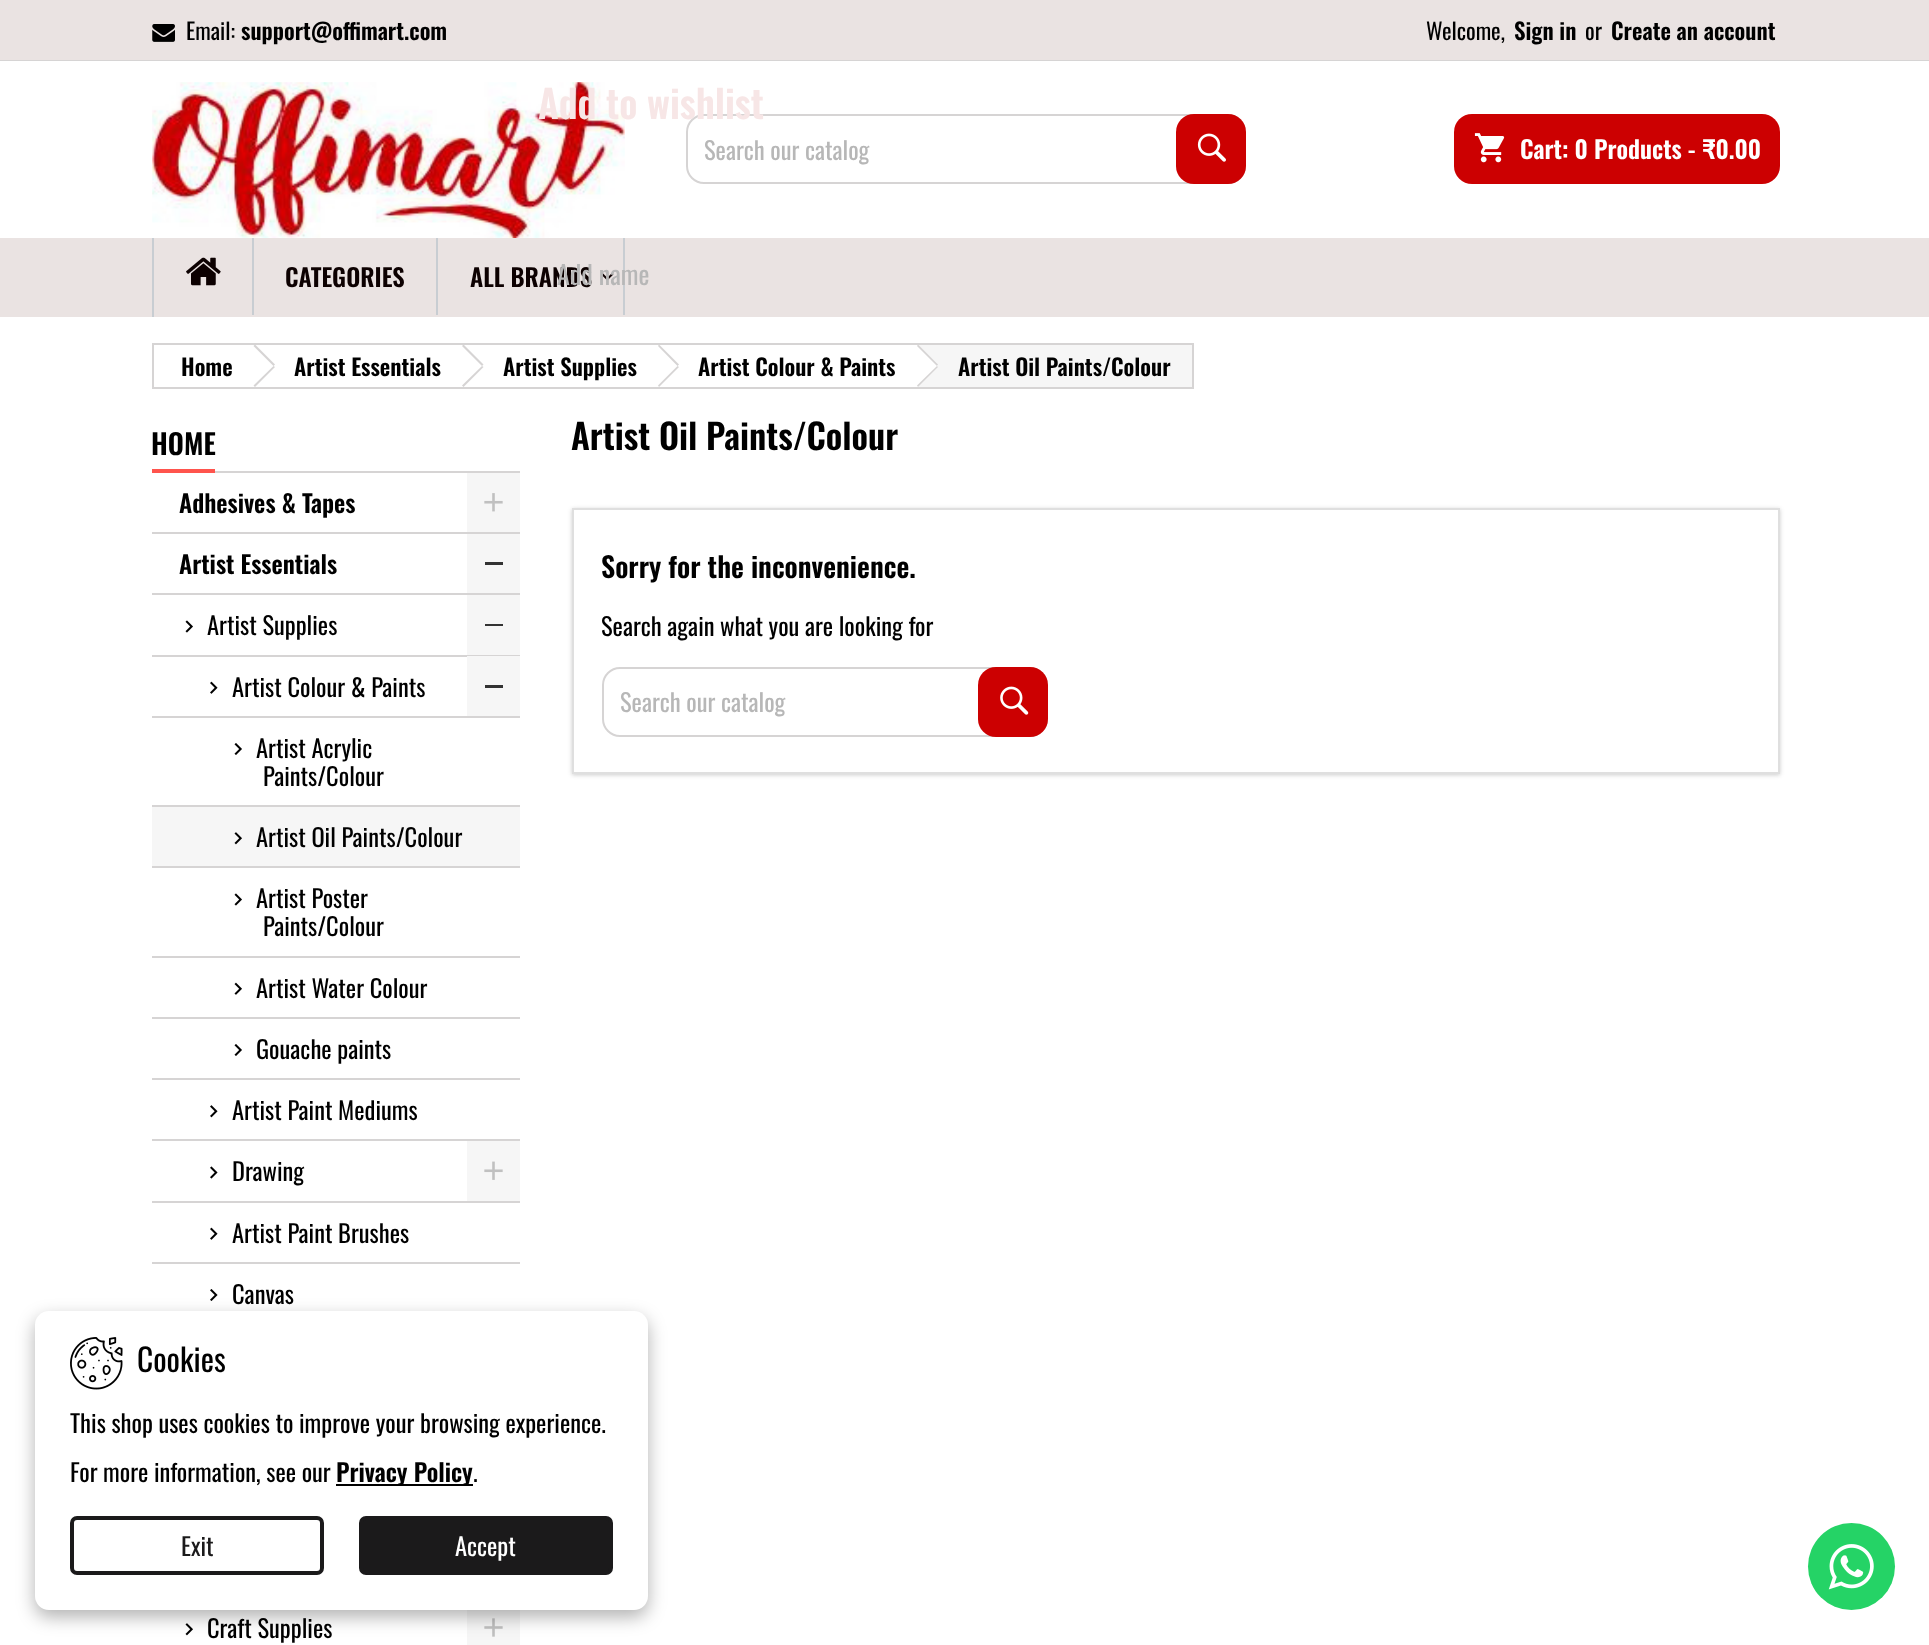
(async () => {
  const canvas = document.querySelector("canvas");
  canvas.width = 1929;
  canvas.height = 1645;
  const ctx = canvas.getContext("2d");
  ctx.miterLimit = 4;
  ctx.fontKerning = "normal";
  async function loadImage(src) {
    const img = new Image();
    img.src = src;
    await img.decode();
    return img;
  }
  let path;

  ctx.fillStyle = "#ffffff";
  ctx.fillRect(0, 0, 1929, 1645);
  ctx.fillStyle = "#eae3e2";
  ctx.fillRect(0, 0, 1929, 60);
  ctx.fillStyle = "#d6d4d4";
  ctx.fillRect(0, 60, 1929, 1);
  ctx.drawImage(await loadImage("img/1.png"), 152, 24, 23, 18);
  ctx.drawImage(await loadImage("img/2.png"), 152, 82, 473, 156);
  ctx.beginPath();
  ctx.roundRect(687, 115, 558, 68, 17);
  ctx.strokeStyle = "#d6d4d4";
  ctx.lineWidth = 2;
  ctx.stroke();
  ctx.fillStyle = "#cc0001";
  ctx.beginPath();
  ctx.roundRect(1176, 114, 70, 70, 18);
  ctx.fill();
  ctx.drawImage(await loadImage("img/3.png"), 1197, 133, 29, 29);
  ctx.beginPath();
  ctx.roundRect(1454, 114, 326, 70, 18);
  ctx.fill();
  ctx.drawImage(await loadImage("img/4.png"), 1474, 133, 31, 30);
  ctx.fillStyle = "#eae3e2";
  ctx.fillRect(0, 238, 1929, 79);
  ctx.fillStyle = "#c8cdd2";
  ctx.fillRect(152, 238, 2, 79);
  ctx.drawImage(await loadImage("img/5.png"), 186, 257, 35, 29);
  for (const [x, y, w, h, color] of [
    [252, 238, 2, 77, "#c8cdd2"],
    [623, 238, 2, 77, "#c8cdd2"],
    [436, 238, 2, 77, "#c8cdd2"],
  ]) {
    ctx.fillStyle = color;
    ctx.fillRect(x, y, w, h);
  }
  ctx.drawImage(await loadImage("img/6.png"), 601, 273, 13, 8);
  ctx.drawImage(await loadImage("img/18.png"), 210, 1289, 8, 12);
  ctx.drawImage(await loadImage("img/19.png"), 185, 1623, 8, 13);
  ctx.fillStyle = "#f6f6f6";
  ctx.fillRect(467, 1610, 53, 35);
  ctx.drawImage(await loadImage("img/20.png"), 484, 1618, 19, 19);
  ctx.fillStyle = "rgba(0, 0, 0, 0.3)";
  ctx.filter = "blur(9px)";
  ctx.beginPath();
  ctx.roundRect(35, 1318, 613, 299, 14);
  ctx.fill();
  ctx.filter = "none";
  ctx.fillStyle = "#ffffff";
  ctx.beginPath();
  ctx.roundRect(35, 1311, 613, 299, 14);
  ctx.fill();
  ctx.drawImage(await loadImage("img/7.png"), 70, 1337, 53, 53);
  ctx.fillStyle = "#000000";
  ctx.fillRect(336, 1484, 137, 2);
  ctx.beginPath();
  ctx.roundRect(72, 1518, 250, 55, 5);
  ctx.strokeStyle = "#1b1a1b";
  ctx.lineWidth = 4;
  ctx.stroke();
  ctx.fillStyle = "#1b1a1b";
  ctx.beginPath();
  ctx.roundRect(361, 1518, 250, 55, 5);
  ctx.fill();
  ctx.stroke();
  ctx.fillStyle = "#25d366";
  ctx.beginPath();
  ctx.arc(1851.5, 1566.5, 43.5, 0, Math.PI * 2);
  ctx.fill();
  ctx.drawImage(await loadImage("img/8.png"), 1828, 1544, 46, 46);
  ctx.strokeStyle = "#d6d4d4";
  ctx.lineWidth = 2;
  ctx.strokeRect(153, 344, 1040, 44);
  ctx.fillStyle = "#d6d4d4";
  path = new Path2D("M255 344.5L275 364.5L273.5 366L253.5 346ZM273.5 366L275 367L255 387L253.5 385.5Z");
  ctx.fill(path);
  path = new Path2D("M463.5 344.5L483.5 364.5L482 366L462 346ZM482 366L483.5 367L463.5 387L462 385.5Z");
  ctx.fill(path);
  path = new Path2D("M659 344.5L679 364.5L677.5 366L658 346ZM677.5 366L679 367L659 387L658 385.5Z");
  ctx.fill(path);
  ctx.fillStyle = "#f6f6f6";
  ctx.fillRect(919, 345, 273, 42);
  ctx.fillStyle = "#ffffff";
  path = new Path2D("M919 346L937 363C938 365 938 367 937 368L919 386C918 387 916 387 915 386L897 368C896 367 896 365 897 363L915 346C916 345 918 345 919 346Z");
  ctx.fill(path);
  ctx.fillStyle = "#d6d4d4";
  path = new Path2D("M918 344.5L938 364.5L937 366L917 346ZM937 366L938 367L918 387L917 385.5Z");
  ctx.fill(path);
  for (const [x, y, w, h, color] of [
    [215, 471, 305, 2, "#d6d4d4"],
    [152, 469, 63, 4, "#ff544d"],
    [152, 532, 368, 2, "#d6d4d4"],
    [467, 473, 53, 59, "#f6f6f6"],
  ]) {
    ctx.fillStyle = color;
    ctx.fillRect(x, y, w, h);
  }
  ctx.drawImage(await loadImage("img/9.png"), 484, 493, 19, 19);
  for (const [x, y, w, h, color] of [
    [152, 593, 368, 2, "#d6d4d4"],
    [467, 534, 53, 59, "#f6f6f6"],
    [485, 562, 18, 3, "#333333"],
    [152, 655, 368, 2, "#d6d4d4"],
  ]) {
    ctx.fillStyle = color;
    ctx.fillRect(x, y, w, h);
  }
  ctx.drawImage(await loadImage("img/10.png"), 185, 620, 8, 13);
  for (const [x, y, w, h, color] of [
    [467, 595, 53, 60, "#f6f6f6"],
    [485, 624, 18, 2, "#333333"],
    [152, 716, 368, 2, "#d6d4d4"],
  ]) {
    ctx.fillStyle = color;
    ctx.fillRect(x, y, w, h);
  }
  ctx.drawImage(await loadImage("img/11.png"), 210, 681, 8, 13);
  for (const [x, y, w, h, color] of [
    [467, 656, 53, 60, "#f6f6f6"],
    [485, 685, 18, 3, "#333333"],
    [152, 805, 368, 2, "#d6d4d4"],
  ]) {
    ctx.fillStyle = color;
    ctx.fillRect(x, y, w, h);
  }
  ctx.drawImage(await loadImage("img/12.png"), 234, 743, 8, 12);
  ctx.fillStyle = "#f6f6f6";
  ctx.fillRect(152, 807, 368, 59);
  ctx.fillStyle = "#d6d4d4";
  ctx.fillRect(152, 866, 368, 2);
  ctx.drawImage(await loadImage("img/13.png"), 234, 832, 8, 13);
  ctx.fillRect(152, 956, 368, 2);
  ctx.drawImage(await loadImage("img/10.png"), 234, 893, 8, 13);
  ctx.fillRect(152, 1017, 368, 2);
  ctx.drawImage(await loadImage("img/14.png"), 234, 982, 8, 13);
  ctx.fillRect(152, 1078, 368, 2);
  ctx.drawImage(await loadImage("img/12.png"), 234, 1044, 8, 12);
  ctx.fillRect(152, 1139, 368, 2);
  ctx.drawImage(await loadImage("img/15.png"), 210, 1105, 8, 13);
  ctx.fillRect(152, 1201, 368, 2);
  ctx.drawImage(await loadImage("img/16.png"), 210, 1166, 8, 13);
  ctx.fillStyle = "#f6f6f6";
  ctx.fillRect(467, 1141, 53, 60);
  ctx.drawImage(await loadImage("img/17.png"), 484, 1161, 19, 19);
  ctx.fillStyle = "#d6d4d4";
  ctx.fillRect(152, 1262, 368, 2);
  ctx.drawImage(await loadImage("img/11.png"), 210, 1227, 8, 13);
  ctx.fillStyle = "rgba(0, 0, 0, 0.2)";
  ctx.filter = "blur(2px)";
  ctx.beginPath();
  ctx.rect(572, 509, 1208, 266);
  ctx.fill();
  ctx.filter = "none";
  ctx.fillStyle = "#ffffff";
  ctx.beginPath();
  ctx.rect(573, 509, 1206, 264);
  ctx.fill();
  ctx.strokeStyle = "#dfdfdf";
  ctx.stroke();
  ctx.beginPath();
  ctx.roundRect(603, 668, 444, 68, 17);
  ctx.strokeStyle = "#d6d4d4";
  ctx.stroke();
  ctx.fillStyle = "#cc0001";
  ctx.beginPath();
  ctx.roundRect(978, 667, 70, 70, 18);
  ctx.fill();
  ctx.drawImage(await loadImage("img/21.png"), 1000, 686, 29, 29);
  ctx.font = "22.75px Oswald";
  ctx.fillStyle = "#000000";
  ctx.fillText("Email:", 186, 40);
  ctx.font = "600 22.75px Oswald";
  ctx.fillText("support@offimart.com", 241, 40);
  ctx.font = "22.75px Oswald";
  ctx.fillText("Welcome,", 1426, 40);
  ctx.font = "600 22.75px Oswald";
  ctx.fillText("Sign in", 1514, 40);
  ctx.font = "22.75px Oswald";
  ctx.fillText("or", 1585, 40);
  ctx.font = "600 22.75px Oswald";
  ctx.fillText("Create an account", 1611, 40);
  ctx.font = "24.5px Oswald";
  ctx.fillStyle = "#b7b7b7";
  ctx.fillText("Search our catalog", 704, 160);
  ctx.font = "600 24.5px Oswald";
  ctx.fillStyle = "#ffffff";
  ctx.fillText("Cart: 0 Products - ₹0.00", 1520, 159);
  ctx.fillStyle = "#0d0101";
  ctx.fillText("CATEGORIES", 285, 287);
  ctx.fillText("ALL BRANDS", 470, 287);
  ctx.font = "600 38.5px Oswald";
  ctx.fillStyle = "#f7e6e6";
  ctx.fillText("Add to wishlist", 538, 119);
  ctx.font = "26px Oswald";
  ctx.fillStyle = "#b7b7b7";
  ctx.fillText("Add name", 557, 285);
  ctx.font = "31.5px Oswald";
  ctx.fillStyle = "#000000";
  ctx.fillText("Cookies", 137, 1372);
  ctx.font = "24.5px Oswald";
  ctx.fillText("This shop uses cookies to improve your browsing experience.", 70, 1433);
  ctx.fillText("For more information, see our", 70, 1482);
  ctx.font = "600 24.5px Oswald";
  ctx.fillText("Privacy Policy", 336, 1482);
  ctx.font = "24.5px Oswald";
  ctx.fillText(".", 473, 1482);
  ctx.fillStyle = "#1b1a1b";
  ctx.fillText("Exit", 181, 1556);
  ctx.fillStyle = "#ffffff";
  ctx.fillText("Accept", 455, 1556);
  ctx.font = "600 22.75px Oswald";
  ctx.fillStyle = "#000000";
  for (const [text, x, y] of [
    ["Home", 181, 376],
    ["Artist Essentials", 294, 376],
    ["Artist Supplies", 503, 376],
    ["Artist Colour & Paints", 698, 376],
    ["Artist Oil Paints/Colour", 958, 376],
  ]) {
    ctx.fillText(text, x, y);
  }
  ctx.font = "600 28px Oswald";
  ctx.fillText("HOME", 151, 455);
  ctx.font = "600 24.5px Oswald";
  ctx.fillText("Adhesives & Tapes", 179, 513);
  ctx.fillText("Artist Essentials", 179, 574);
  ctx.font = "24.5px Oswald";
  for (const [text, x, y] of [
    ["Artist Supplies", 207, 635],
    ["Artist Colour & Paints", 232, 697],
    ["Artist Acrylic", 256, 758],
    ["Paints/Colour", 263, 786],
    ["Artist Oil Paints/Colour", 256, 847],
    ["Artist Poster", 256, 908],
    ["Paints/Colour", 263, 936],
    ["Artist Water Colour", 256, 998],
    ["Gouache paints", 256, 1059],
    ["Artist Paint Mediums", 232, 1120],
    ["Drawing", 232, 1181],
    ["Artist Paint Brushes", 232, 1243],
    ["Canvas", 232, 1304],
    ["Craft Supplies", 207, 1638],
  ]) {
    ctx.fillText(text, x, y);
  }
  ctx.font = "600 35px Oswald";
  ctx.fillText("Artist Oil Paints/Colour", 571, 450);
  ctx.font = "600 28px Oswald";
  ctx.fillText("Sorry for the inconvenience.", 601, 578);
  ctx.font = "24.5px Oswald";
  ctx.fillText("Search again what you are looking for", 601, 636);
  ctx.fillStyle = "#b7b7b7";
  ctx.fillText("Search our catalog", 620, 712);
})();
